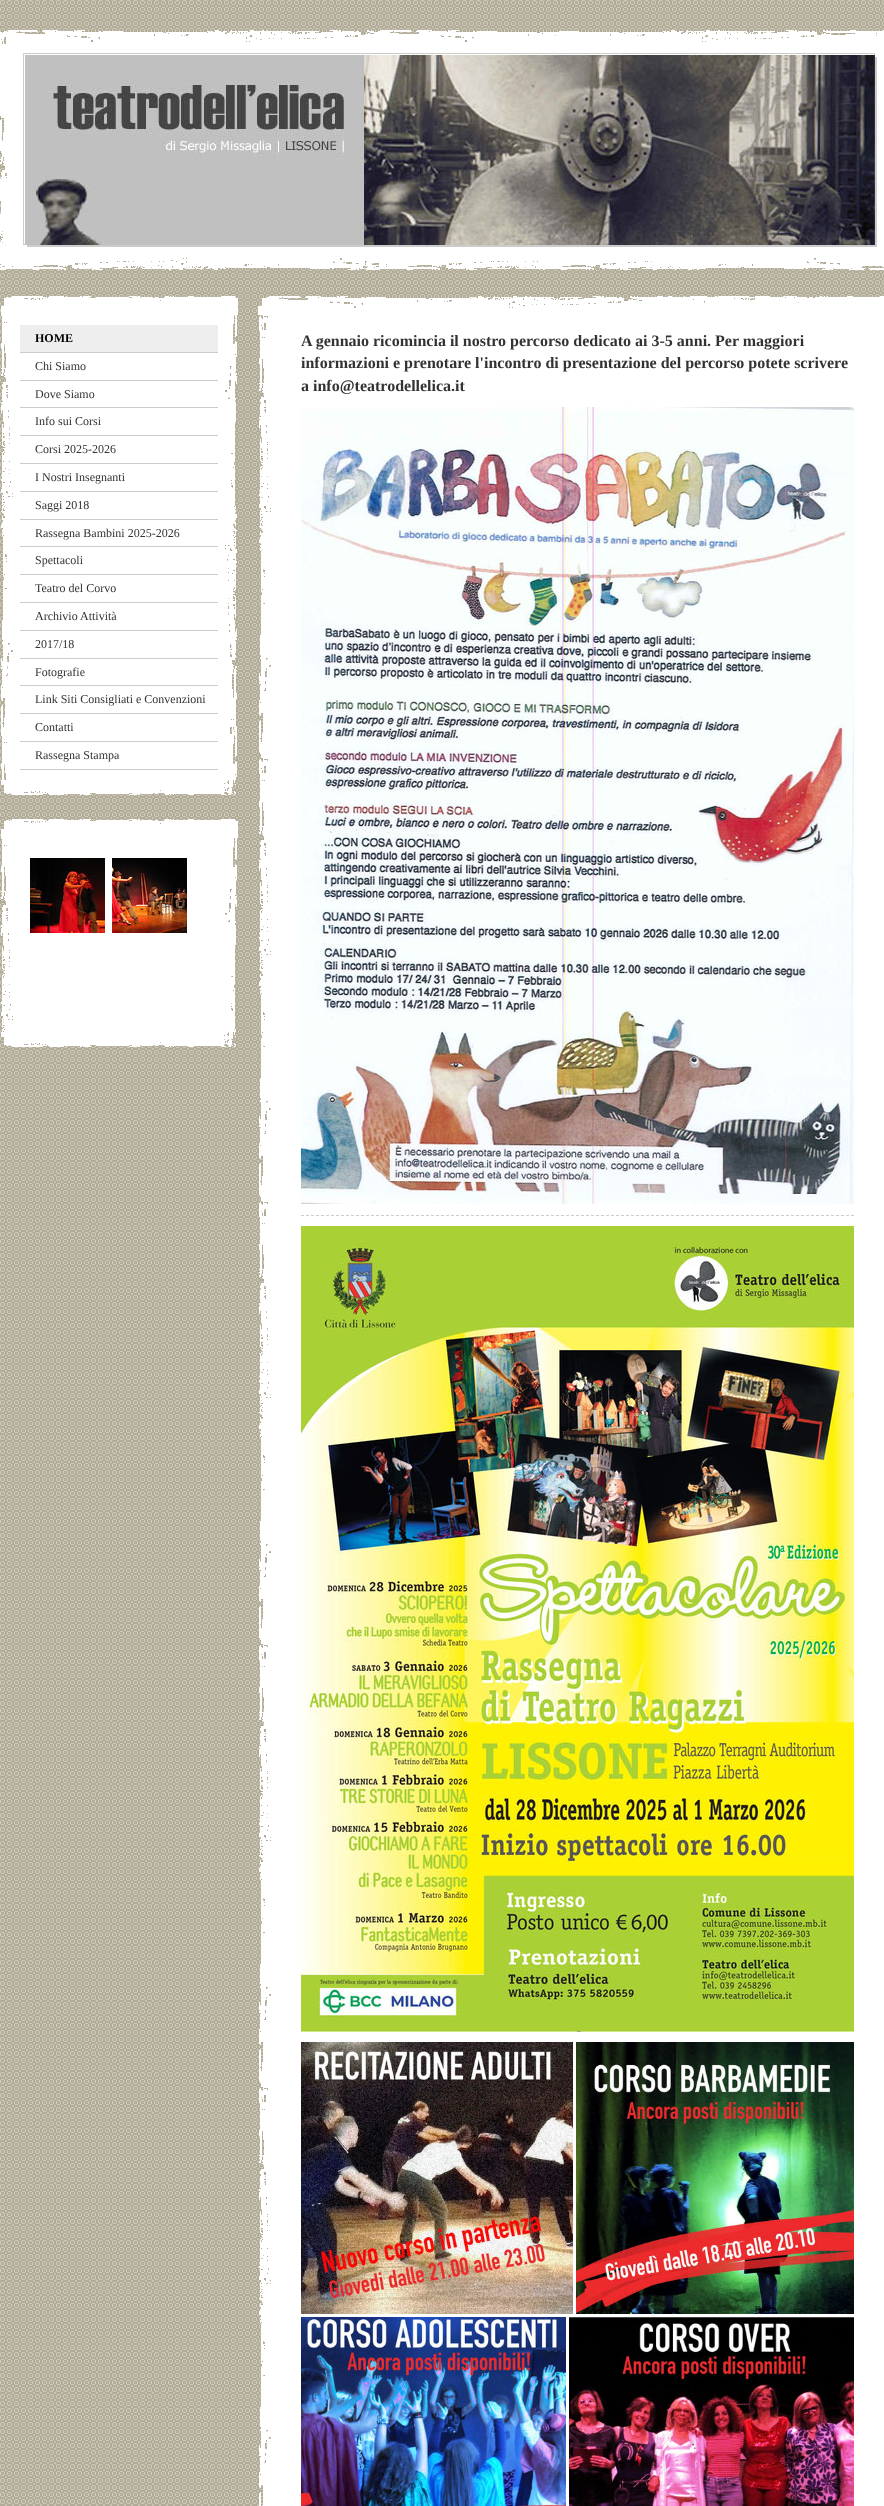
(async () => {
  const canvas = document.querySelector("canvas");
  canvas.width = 884;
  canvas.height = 2506;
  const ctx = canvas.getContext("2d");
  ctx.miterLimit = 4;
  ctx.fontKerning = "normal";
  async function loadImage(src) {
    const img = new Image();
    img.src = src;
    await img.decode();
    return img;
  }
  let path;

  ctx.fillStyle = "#ffffff";
  ctx.fillRect(0, 0, 884, 2506);
  ctx.drawImage(await loadImage("img/1.png"), 0, 0, 884, 2506);
  ctx.drawImage(await loadImage("img/2.png"), 0, 30, 884, 240);
  ctx.drawImage(await loadImage("img/3.png"), 25, 55, 850, 190);
  ctx.drawImage(await loadImage("img/4.png"), 1, 296, 237, 19);
  ctx.drawImage(await loadImage("img/5.png"), 1, 315, 236, 465);
  for (const [x, y, w, h, color] of [
    [20, 325, 198, 27, "#eeeeee"],
    [20, 352, 198, 1, "#cccccc"],
    [20, 380, 198, 1, "#cccccc"],
    [20, 407, 198, 1, "#cccccc"],
    [20, 435, 198, 1, "#cccccc"],
    [20, 463, 198, 1, "#cccccc"],
    [20, 491, 198, 1, "#cccccc"],
    [20, 519, 198, 1, "#cccccc"],
    [20, 546, 198, 1, "#cccccc"],
    [20, 574, 198, 1, "#cccccc"],
    [20, 602, 198, 1, "#cccccc"],
    [20, 630, 198, 1, "#cccccc"],
    [20, 658, 198, 1, "#cccccc"],
    [20, 685, 198, 1, "#cccccc"],
    [20, 713, 198, 1, "#cccccc"],
    [20, 741, 198, 1, "#cccccc"],
    [20, 769, 198, 1, "#cccccc"],
  ]) {
    ctx.fillStyle = color;
    ctx.fillRect(x, y, w, h);
  }
  ctx.drawImage(await loadImage("img/6.png"), 1, 780, 235, 15);
  ctx.drawImage(await loadImage("img/7.png"), 1, 819, 237, 19);
  ctx.drawImage(await loadImage("img/8.png"), 1, 838, 236, 194);
  ctx.drawImage(await loadImage("img/9.png"), 30, 858, 75, 75);
  ctx.drawImage(await loadImage("img/10.png"), 112, 858, 75, 75);
  ctx.drawImage(await loadImage("img/6.png"), 1, 1032, 235, 15);
  ctx.drawImage(await loadImage("img/11.png"), 258, 296, 626, 19);
  ctx.drawImage(await loadImage("img/12.png"), 259, 315, 625, 2191);
  ctx.drawImage(await loadImage("img/13.png"), 301, 407, 553, 797);
  path = new Path2D("M301 1215.5H854");
  ctx.strokeStyle = "#cccccc";
  ctx.setLineDash([3, 2]);
  ctx.stroke(path);
  ctx.drawImage(await loadImage("img/14.png"), 301, 1226, 553, 806);
  ctx.drawImage(await loadImage("img/15.png"), 301, 2042, 272, 272);
  ctx.drawImage(await loadImage("img/16.png"), 576, 2042, 278, 272);
  ctx.drawImage(await loadImage("img/17.png"), 301, 2317, 265, 189);
  ctx.drawImage(await loadImage("img/18.png"), 569, 2317, 285, 189);
  ctx.font = "bold 12px Liberation Serif";
  ctx.fillStyle = "#000000";
  ctx.fillText("HOME", 35, 342);
  ctx.font = "12px Liberation Serif";
  ctx.fillStyle = "#333333";
  for (const [text, x, y] of [
    ["Chi Siamo", 35, 370],
    ["Dove Siamo", 35, 398],
    ["Info sui Corsi", 35, 425],
    ["Corsi 2025-2026", 35, 453],
    ["I Nostri Insegnanti", 35, 481],
    ["Saggi 2018", 35, 509],
    ["Rassegna Bambini 2025-2026", 35, 537],
    ["Spettacoli", 35, 564],
    ["Teatro del Corvo", 35, 592],
    ["Archivio Attività", 35, 620],
    ["2017/18", 35, 648],
    ["Fotografie", 35, 676],
    ["Link Siti Consigliati e Convenzioni", 35, 703],
    ["Contatti", 35, 731],
    ["Rassegna Stampa", 35, 759],
  ]) {
    ctx.fillText(text, x, y);
  }
  ctx.font = "bold 16px Liberation Serif";
  for (const [text, x, y] of [
    ["A gennaio ricomincia il nostro percorso dedicato ai 3-5 anni. Per maggiori", 301, 346],
    ["informazioni e prenotare l'incontro di presentazione del percorso potete scrivere", 301, 368],
    ["a info@teatrodellelica.it", 301, 391],
  ]) {
    ctx.fillText(text, x, y);
  }
})();
